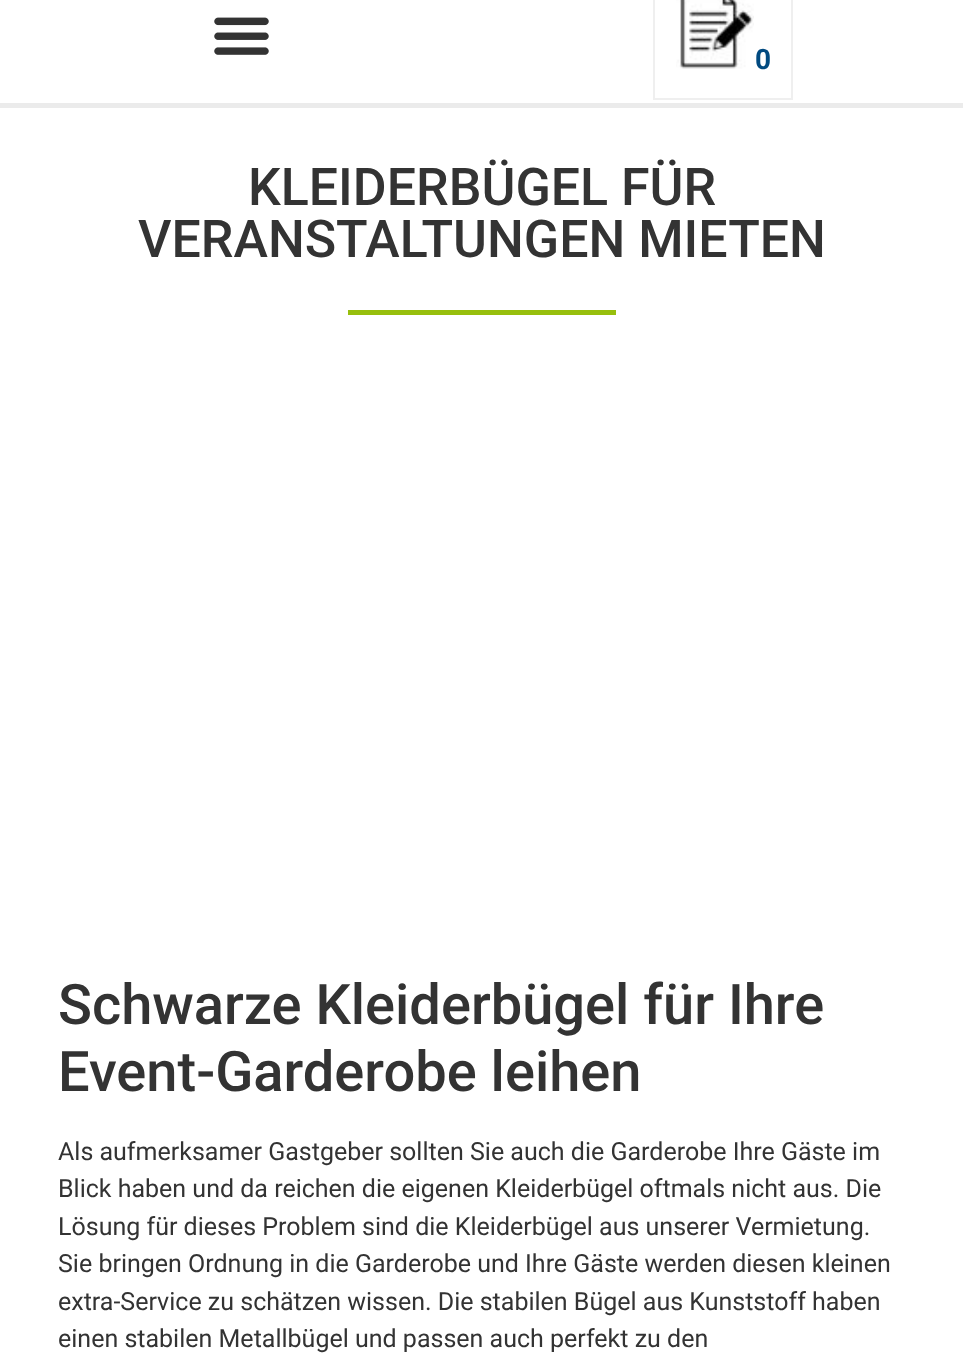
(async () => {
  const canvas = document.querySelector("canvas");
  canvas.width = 963;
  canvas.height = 1370;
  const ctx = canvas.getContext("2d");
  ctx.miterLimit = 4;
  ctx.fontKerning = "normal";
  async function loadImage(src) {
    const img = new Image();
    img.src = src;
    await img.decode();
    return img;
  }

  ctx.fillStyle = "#ffffff";
  ctx.fillRect(0, 0, 963, 1370);
  ctx.fillStyle = "#ebebeb";
  ctx.fillRect(0, 103, 963, 5);
  ctx.drawImage(await loadImage("img/1.png"), 214, 17, 55, 38);
  ctx.strokeStyle = "#efefef";
  ctx.lineWidth = 2;
  ctx.strokeRect(654, -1, 138, 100);
  ctx.drawImage(await loadImage("img/2.png"), 676, 0, 78, 69);
  ctx.fillStyle = "#97bf0d";
  ctx.fillRect(348, 310, 268, 5);
  ctx.font = "bold 28px Roboto";
  ctx.fillStyle = "#014a80";
  ctx.fillText("0", 755, 69);
  ctx.font = "500 51.9px Roboto";
  ctx.fillStyle = "#333333";
  ctx.fillText("KLEIDERBÜGEL FÜR", 248, 205);
  ctx.fillText("VERANSTALTUNGEN MIETEN", 138, 257);
  ctx.font = "500 56px Roboto";
  ctx.fillText("Schwarze Kleiderbügel für Ihre", 58, 1024);
  ctx.fillText("Event-Garderobe leihen", 58, 1091);
  ctx.font = "25px Roboto";
  for (const [text, x, y] of [
    ["Als aufmerksamer Gastgeber sollten Sie auch die Garderobe Ihre Gäste im", 58, 1160],
    ["Blick haben und da reichen die eigenen Kleiderbügel oftmals nicht aus. Die", 58, 1197],
    ["Lösung für dieses Problem sind die Kleiderbügel aus unserer Vermietung.", 58, 1235],
    ["Sie bringen Ordnung in die Garderobe und Ihre Gäste werden diesen kleinen", 58, 1272],
    ["extra-Service zu schätzen wissen. Die stabilen Bügel aus Kunststoff haben", 58, 1310],
    ["einen stabilen Metallbügel und passen auch perfekt zu den", 58, 1347],
  ]) {
    ctx.fillText(text, x, y);
  }
})();
